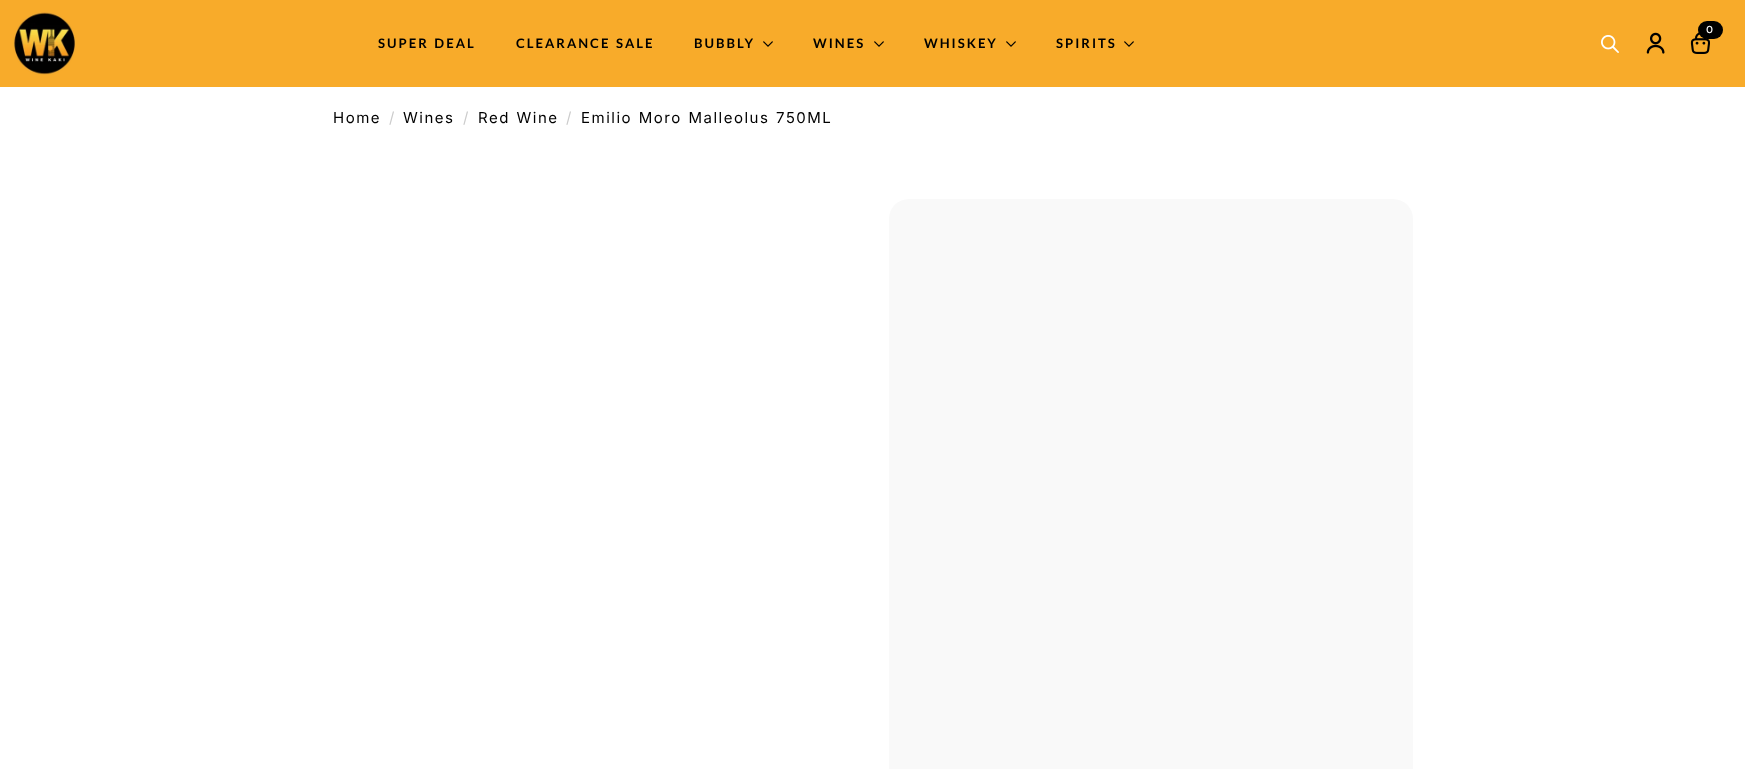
(async () => {
  const canvas = document.querySelector("canvas");
  canvas.width = 1745;
  canvas.height = 769;
  const ctx = canvas.getContext("2d");
  ctx.miterLimit = 4;
  ctx.fontKerning = "normal";
  async function loadImage(src) {
    const img = new Image();
    img.src = src;
    await img.decode();
    return img;
  }

  ctx.fillStyle = "#ffffff";
  ctx.fillRect(0, 0, 1745, 769);
  ctx.fillStyle = "#f8ab2a";
  ctx.fillRect(0, 0, 1745, 87);
  ctx.drawImage(await loadImage("img/1.png"), 13, 12, 63, 63);
  ctx.drawImage(await loadImage("img/2.png"), 1690, 32, 20, 22);
  ctx.fillStyle = "#000000";
  ctx.beginPath();
  ctx.roundRect(1698, 21, 25, 18, 9);
  ctx.fill();
  ctx.drawImage(await loadImage("img/3.png"), 1601, 35, 18, 18);
  ctx.drawImage(await loadImage("img/4.png"), 1646, 32, 19, 22);
  ctx.drawImage(await loadImage("img/5.png"), 763, 41, 10, 6);
  ctx.drawImage(await loadImage("img/5.png"), 874, 41, 10, 6);
  ctx.drawImage(await loadImage("img/5.png"), 1006, 41, 10, 6);
  ctx.drawImage(await loadImage("img/5.png"), 1124, 41, 10, 6);
  ctx.fillStyle = "#f9f9f9";
  ctx.beginPath();
  ctx.roundRect(889, 199, 524, 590, 20);
  ctx.fill();
  ctx.letterSpacing = "1.5px";
  ctx.font = "500 10px Cabin";
  ctx.fillStyle = "#ffffff";
  ctx.fillText("0", 1706, 33);
  ctx.letterSpacing = "2px";
  ctx.wordSpacing = "1px";
  ctx.font = "bold 13.1px Lato";
  ctx.fillStyle = "#000000";
  ctx.fillText("SUPER DEAL", 378, 48);
  ctx.fillText("CLEARANCE SALE", 516, 48);
  ctx.wordSpacing = "0px";
  for (const [text, x, y] of [
    ["BUBBLY", 694, 48],
    ["WINES", 813, 48],
    ["WHISKEY", 924, 48],
    ["SPIRITS", 1056, 48],
  ]) {
    ctx.fillText(text, x, y);
  }
  ctx.letterSpacing = "1.5px";
  ctx.font = "15px Inter";
  ctx.fillText("Home", 333, 123);
  ctx.fillStyle = "#cccccc";
  ctx.fillText("/", 389, 123);
  ctx.fillStyle = "#000000";
  ctx.fillText("Wines", 403, 123);
  ctx.fillStyle = "#cccccc";
  ctx.fillText("/", 463, 123);
  ctx.wordSpacing = "1px";
  ctx.fillStyle = "#000000";
  ctx.fillText("Red Wine", 478, 123);
  ctx.wordSpacing = "0px";
  ctx.fillStyle = "#cccccc";
  ctx.fillText("/", 566, 123);
  ctx.wordSpacing = "1px";
  ctx.fillStyle = "#000000";
  ctx.fillText("Emilio Moro Malleolus 750ML", 581, 123);
})();
